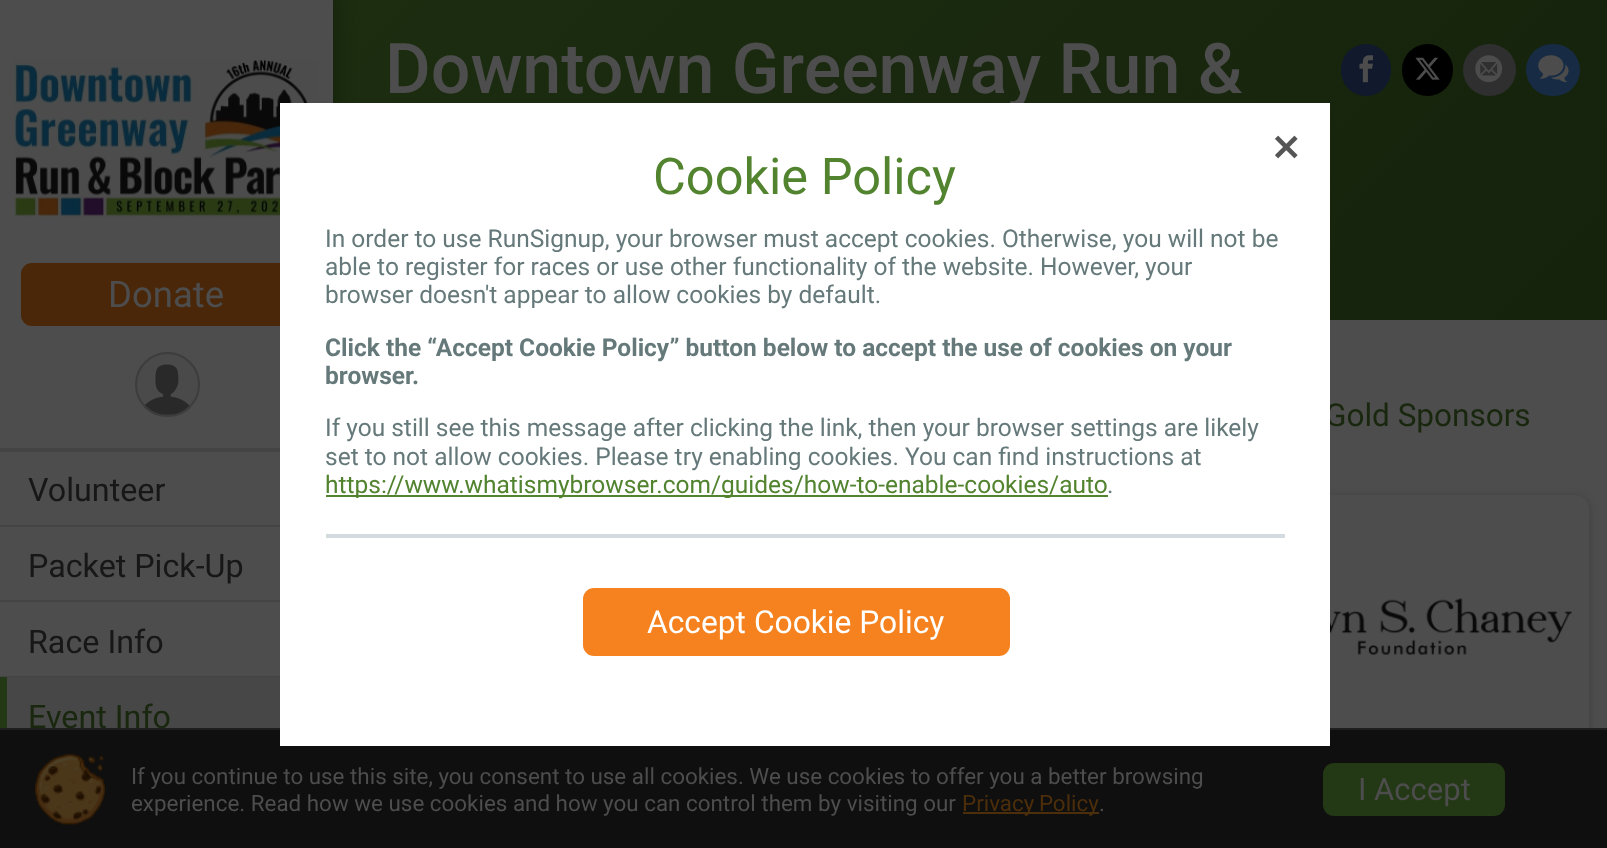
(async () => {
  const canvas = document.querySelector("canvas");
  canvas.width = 1607;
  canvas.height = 848;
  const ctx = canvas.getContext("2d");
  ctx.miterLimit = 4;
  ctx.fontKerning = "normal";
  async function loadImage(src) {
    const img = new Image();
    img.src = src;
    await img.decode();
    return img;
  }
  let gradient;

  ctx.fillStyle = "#4d4d4d";
  ctx.fillRect(0, 0, 1607, 848);
  gradient = ctx.createLinearGradient(1369, 559, 571, -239);
  gradient.addColorStop(0, "#15220c");
  gradient.addColorStop(1, "#1c2d10");
  ctx.fillStyle = gradient;
  ctx.fillRect(333, 0, 1274, 320);
  ctx.fillStyle = "#11192d";
  ctx.beginPath();
  ctx.roundRect(1341, 44, 50, 52, 25);
  ctx.fill();
  ctx.drawImage(await loadImage("img/1.png"), 1359, 55, 14, 28);
  ctx.fillStyle = "#000000";
  ctx.beginPath();
  ctx.roundRect(1402, 44, 51, 52, 25.5);
  ctx.fill();
  ctx.drawImage(await loadImage("img/2.png"), 1415, 57, 25, 23);
  ctx.fillStyle = "#2f2f2f";
  ctx.beginPath();
  ctx.roundRect(1463, 44, 53, 52, 26);
  ctx.fill();
  ctx.drawImage(await loadImage("img/3.png"), 1475, 55, 28, 28);
  ctx.fillStyle = "#172c44";
  ctx.beginPath();
  ctx.roundRect(1526, 44, 54, 52, 26);
  ctx.fill();
  ctx.drawImage(await loadImage("img/4.png"), 1538, 55, 31, 28);
  ctx.fillStyle = "rgba(0, 0, 0, 0.2)";
  ctx.filter = "blur(8px)";
  ctx.beginPath();
  ctx.rect(-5, -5, 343, 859);
  ctx.fill();
  ctx.filter = "none";
  ctx.fillStyle = "#4d4d4d";
  ctx.fillRect(0, 0, 333, 676);
  ctx.drawImage(await loadImage("img/5.png"), 14, 59, 305, 158);
  ctx.fillStyle = "#4a2709";
  ctx.beginPath();
  ctx.roundRect(21, 263, 291, 63, 11);
  ctx.fill();
  ctx.drawImage(await loadImage("img/6.png"), 137, 354, 61, 61);
  ctx.beginPath();
  ctx.arc(167.5, 384.5, 31.5, 0, Math.PI * 2);
  ctx.strokeStyle = "#3d3d3d";
  ctx.lineWidth = 2;
  ctx.stroke();
  for (const [x, y, w, h, color] of [
    [0, 448, 280, 4, "#444444"],
    [0, 525, 280, 2, "#444444"],
    [0, 600, 280, 2, "#444444"],
    [0, 676, 280, 1, "#444444"],
    [7, 677, 273, 51, "#474747"],
    [0, 677, 7, 51, "#233814"],
  ]) {
    ctx.fillStyle = color;
    ctx.fillRect(x, y, w, h);
  }
  ctx.fillStyle = "rgba(0, 0, 0, 0.2)";
  ctx.filter = "blur(4.5px)";
  ctx.beginPath();
  ctx.roundRect(1239, 497, 350, 263, 14);
  ctx.fill();
  ctx.filter = "none";
  ctx.fillStyle = "#4d4d4d";
  ctx.beginPath();
  ctx.roundRect(1239, 495, 350, 263, 14);
  ctx.fill();
  ctx.drawImage(await loadImage("img/7.png"), 1330, 598, 242, 57);
  ctx.fillStyle = "#0f0f0f";
  ctx.fillRect(0, 730, 1607, 118);
  ctx.drawImage(await loadImage("img/9.png"), 35, 754, 70, 71);
  ctx.fillStyle = "#4c2e0b";
  ctx.fillRect(963, 812, 136, 2);
  ctx.fillStyle = "#233814";
  ctx.beginPath();
  ctx.roundRect(1323, 763, 182, 53, 11);
  ctx.fill();
  ctx.font = "500 70px Roboto";
  ctx.fillStyle = "#4d4d4d";
  ctx.fillText("Downtown Greenway Run &", 385, 93);
  ctx.font = "36.5px Roboto";
  ctx.fillText("Donate", 108, 307);
  ctx.font = "32.25px Roboto";
  ctx.fillStyle = "#171717";
  for (const [text, x, y] of [
    ["Volunteer", 28, 501],
    ["Packet Pick-Up", 28, 577],
    ["Race Info", 28, 653],
  ]) {
    ctx.fillText(text, x, y);
  }
  ctx.fillStyle = "#19270e";
  ctx.fillText("Event Info", 28, 728);
  ctx.font = "31.5px Roboto";
  ctx.fillText("Gold Sponsors", 1325, 426);
  ctx.fillStyle = "#1f1f1f";
  ctx.fillRect(0, 728, 1607, 2);
  ctx.strokeStyle = "#ffffff";
  ctx.strokeRect(281, 104, 1048, 641);
  ctx.fillStyle = "#ffffff";
  ctx.fillRect(282, 105, 1046, 639);
  ctx.drawImage(await loadImage("img/8.png"), 1275, 135, 23, 24);
  ctx.fillStyle = "#d3dbdf";
  ctx.fillRect(326, 534, 959, 4);
  ctx.fillStyle = "#f5821f";
  ctx.beginPath();
  ctx.roundRect(583, 588, 427, 68, 11);
  ctx.fill();
  ctx.font = "31.75px Roboto";
  ctx.fillStyle = "#ffffff";
  ctx.fillText("Accept Cookie Policy", 647, 633);
  ctx.font = "24.5px Roboto";
  ctx.fillStyle = "#66797a";
  ctx.fillText(".", 1107, 493);
  ctx.fillStyle = "#52832f";
  ctx.fillRect(326, 495, 782, 2);
  ctx.fillText("https://www.whatismybrowser.com/guides/how-to-enable-cookies/auto", 325, 493);
  ctx.fillStyle = "#66797a";
  ctx.fillText("set to not allow cookies. Please try enabling cookies. You can find instructions at", 325, 465);
  ctx.fillText("If you still see this message after clicking the link, then your browser settings are likely", 325, 436);
  ctx.font = "bold 24.5px Roboto";
  ctx.fillText("browser.", 325, 384);
  ctx.fillText("Click the “Accept Cookie Policy” button below to accept the use of cookies on your", 325, 356);
  ctx.font = "24.5px Roboto";
  for (const [text, x, y] of [
    ["browser doesn't appear to allow cookies by default.", 325, 303],
    ["able to register for races or use other functionality of the website. However, your", 325, 275],
    ["In order to use RunSignup, your browser must accept cookies. Otherwise, you will not be", 325, 247],
  ]) {
    ctx.fillText(text, x, y);
  }
  ctx.font = "50.5px Roboto";
  ctx.fillStyle = "#52832f";
  ctx.fillText("Cookie Policy", 653, 194);
  ctx.font = "22.4px Roboto";
  ctx.fillStyle = "#4d4d4d";
  ctx.fillText("If you continue to use this site, you consent to use all cookies. We use cookies to offer you a better browsing", 131, 784);
  ctx.fillText("experience. Read how we use cookies and how you can control them by visiting our", 131, 811);
  ctx.wordSpacing = "-1px";
  ctx.fillStyle = "#4c2e0b";
  ctx.fillText("Privacy Policy", 962, 811);
  ctx.wordSpacing = "0px";
  ctx.fillStyle = "#4d4d4d";
  ctx.fillText(".", 1099, 811);
  ctx.font = "31px Roboto";
  ctx.fillText("I Accept", 1358, 800);
})();
